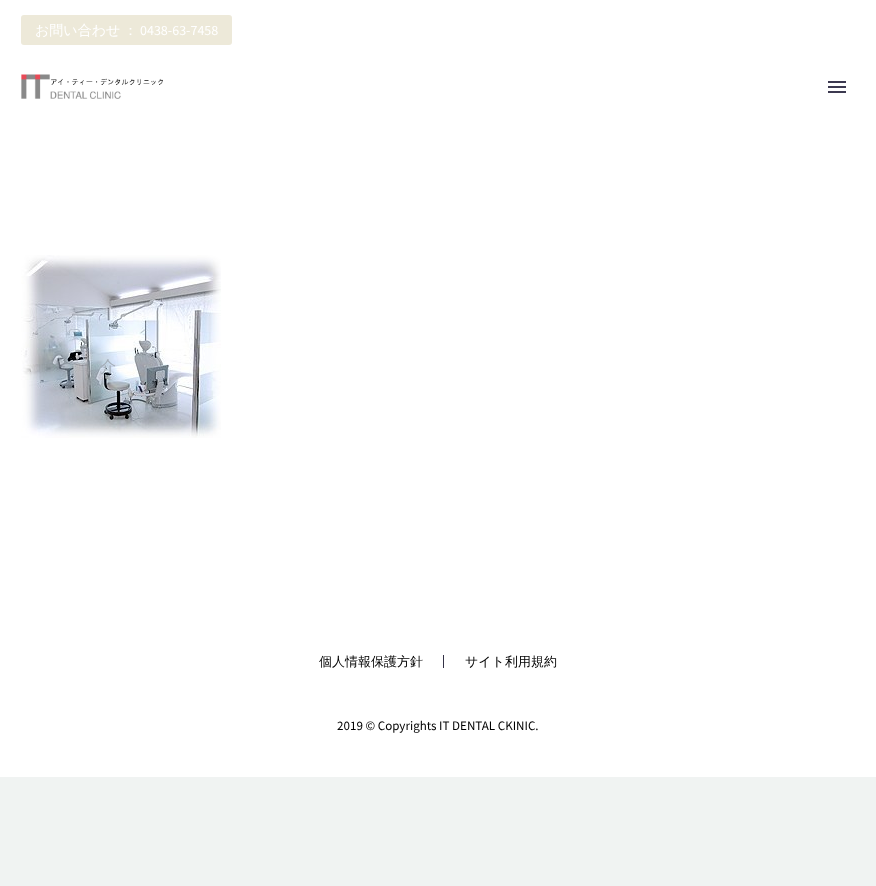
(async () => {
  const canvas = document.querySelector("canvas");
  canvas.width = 876;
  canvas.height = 886;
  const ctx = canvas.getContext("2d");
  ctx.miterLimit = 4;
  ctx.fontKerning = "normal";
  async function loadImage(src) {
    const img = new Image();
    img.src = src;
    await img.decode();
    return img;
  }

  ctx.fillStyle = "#f0f3f2";
  ctx.fillRect(0, 0, 876, 886);
  ctx.fillStyle = "#ffffff";
  ctx.fillRect(0, 0, 876, 117);
  ctx.fillStyle = "#ede9d9";
  ctx.beginPath();
  ctx.roundRect(21, 15, 211, 30, 3);
  ctx.fill();
  ctx.drawImage(await loadImage("img/1.png"), 21, 74, 142, 25);
  for (const [x, y, w, h, color] of [
    [828, 81, 18, 2, "#3c3950"],
    [828, 86, 18, 2, "#3c3950"],
    [828, 91, 18, 2, "#3c3950"],
    [0, 117, 876, 660, "#ffffff"],
  ]) {
    ctx.fillStyle = color;
    ctx.fillRect(x, y, w, h);
  }
  ctx.drawImage(await loadImage("img/2.png"), 21, 255, 200, 183);
  ctx.fillStyle = "#333146";
  ctx.fillRect(443, 655, 1, 13);
  ctx.wordSpacing = "-1px";
  ctx.font = "500 14px WenQuanYi Zen Hei";
  ctx.fillStyle = "#ffffff";
  ctx.fillText("お問い合わせ ：", 35, 35);
  ctx.wordSpacing = "0px";
  ctx.font = "14px Source Sans Pro";
  ctx.fillText("0438-63-7458", 140, 35);
  ctx.font = "500 16px WenQuanYi Zen Hei";
  ctx.fillStyle = "#a4aeb8";
  ctx.fillText("介", 100, 372);
  ctx.font = "500 13px WenQuanYi Zen Hei";
  ctx.fillStyle = "#000000";
  ctx.fillText("個人情報保護方針", 319, 666);
  ctx.fillText("サイト利用規約", 465, 666);
  ctx.font = "13px Source Sans Pro";
  ctx.fillText("2019 © Copyrights IT DENTAL CKINIC.", 337, 730);
})();
